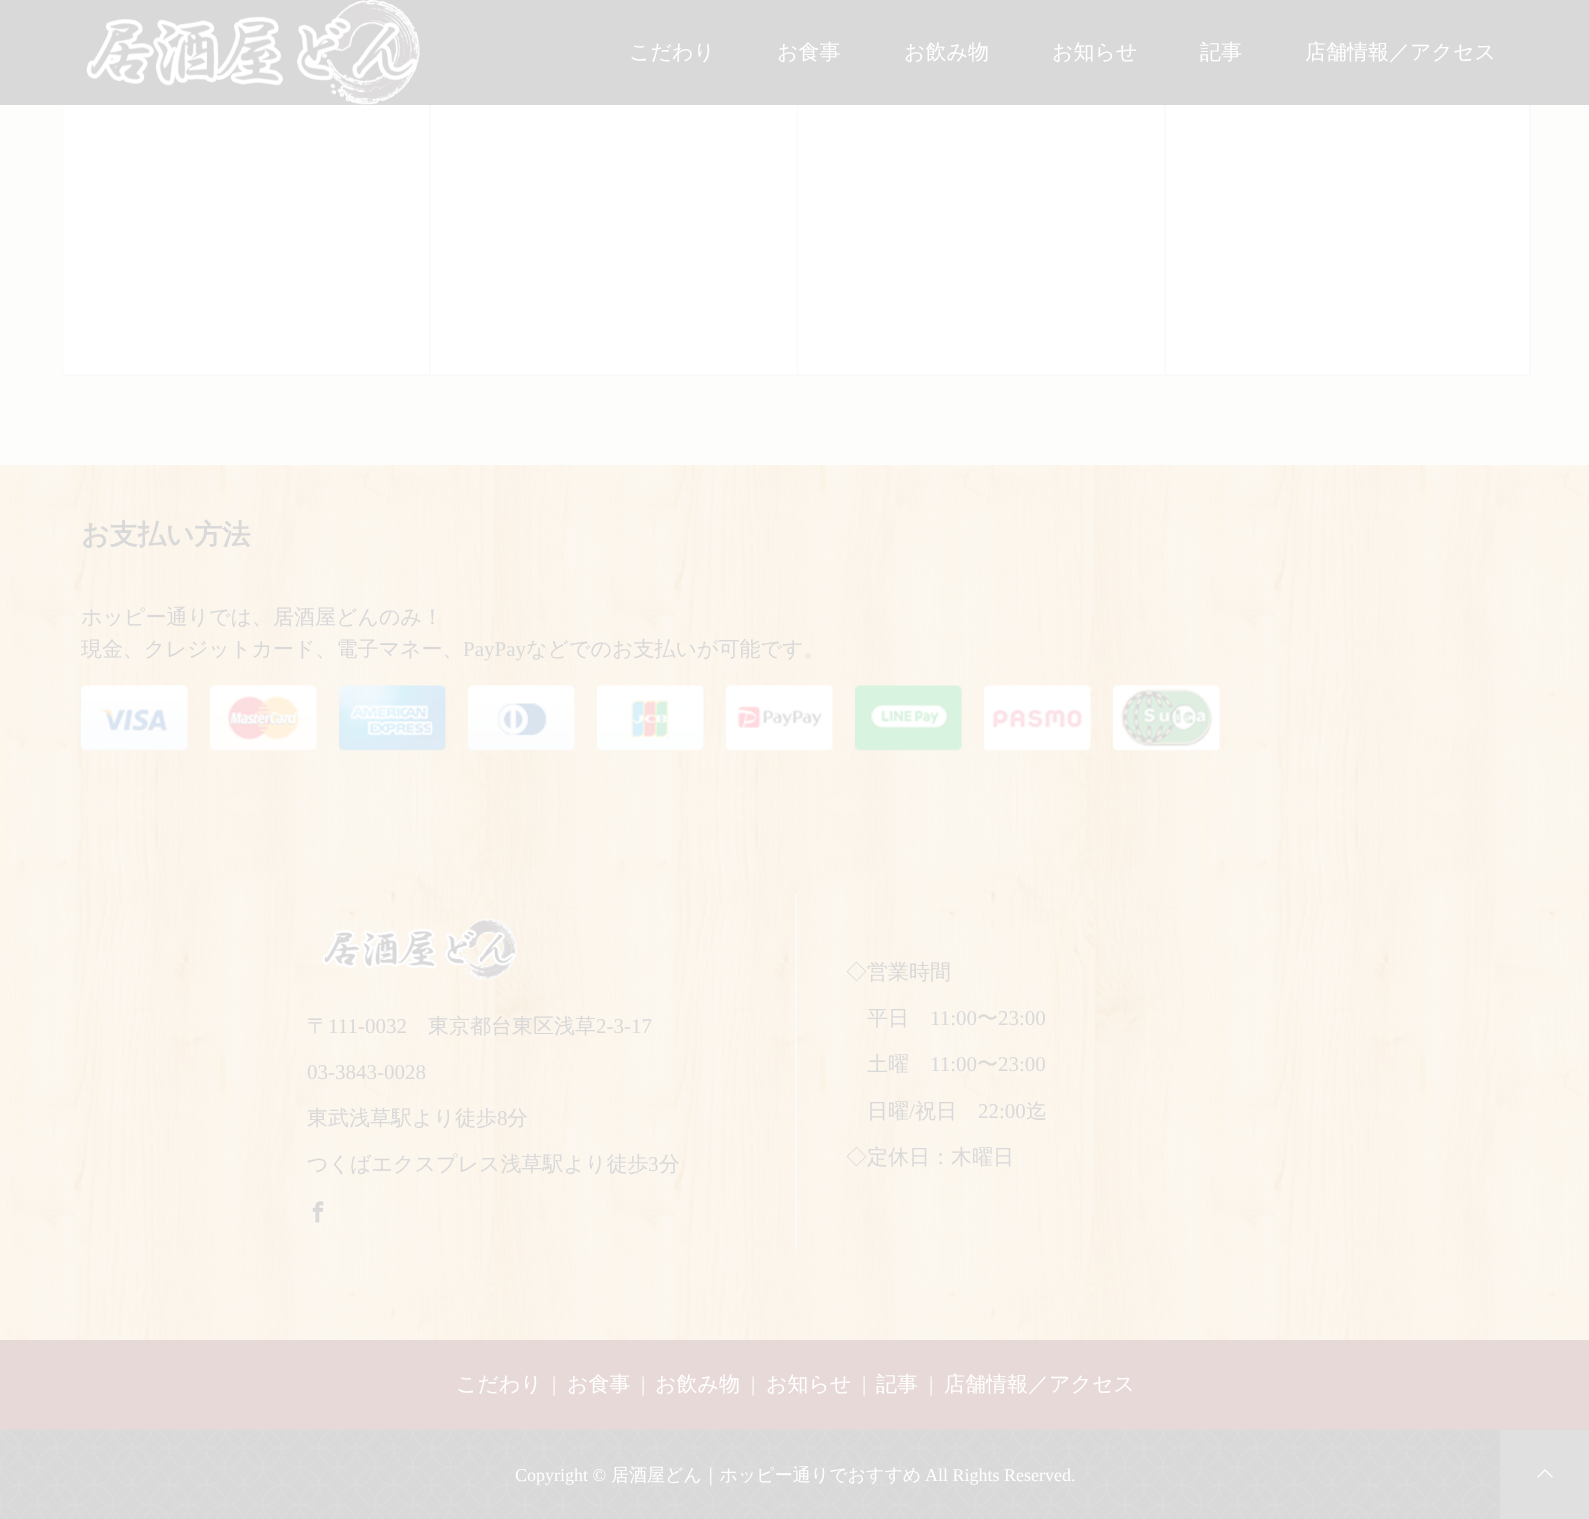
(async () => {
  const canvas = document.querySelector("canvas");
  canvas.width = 1589;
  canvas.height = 1519;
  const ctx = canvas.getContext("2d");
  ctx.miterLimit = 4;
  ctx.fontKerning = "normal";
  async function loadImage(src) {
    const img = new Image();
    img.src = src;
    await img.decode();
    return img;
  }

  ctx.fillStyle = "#ffffff";
  ctx.fillRect(0, 0, 1589, 1519);
  ctx.drawImage(await loadImage("img/1.png"), 0, 465, 1589, 875);
  ctx.fillStyle = "#d9d9d9";
  ctx.fillRect(0, 0, 1589, 105);
  ctx.drawImage(await loadImage("img/2.png"), 86, 0, 334, 105);
  for (const [x, y, w, h, color] of [
    [0, 105, 1589, 360, "#fdfdfc"],
    [1529, 105, 2, 270, "#fafafa"],
    [62, 374, 1468, 2, "#fafafa"],
    [62, 105, 2, 270, "#fafafa"],
    [63, 105, 366, 269, "#ffffff"],
    [429, 105, 2, 269, "#fafafa"],
    [431, 105, 366, 269, "#ffffff"],
    [797, 105, 1, 269, "#fafafa"],
    [798, 105, 366, 269, "#ffffff"],
    [1164, 105, 2, 269, "#fafafa"],
    [1166, 105, 363, 269, "#ffffff"],
  ]) {
    ctx.fillStyle = color;
    ctx.fillRect(x, y, w, h);
  }
  ctx.drawImage(await loadImage("img/3.png"), 81, 685, 107, 66);
  ctx.drawImage(await loadImage("img/4.png"), 210, 685, 107, 66);
  ctx.drawImage(await loadImage("img/5.png"), 339, 685, 107, 66);
  ctx.drawImage(await loadImage("img/6.png"), 468, 685, 107, 66);
  ctx.drawImage(await loadImage("img/7.png"), 597, 685, 107, 66);
  ctx.drawImage(await loadImage("img/8.png"), 726, 685, 107, 66);
  ctx.drawImage(await loadImage("img/9.png"), 855, 685, 108, 66);
  ctx.drawImage(await loadImage("img/10.png"), 984, 685, 107, 66);
  ctx.drawImage(await loadImage("img/11.png"), 1113, 685, 107, 66);
  ctx.drawImage(await loadImage("img/12.png"), 321, 918, 196, 63);
  ctx.drawImage(await loadImage("img/13.png"), 312, 1201, 12, 22);
  ctx.fillStyle = "#fafafa";
  ctx.fillRect(795, 894, 2, 356);
  ctx.fillStyle = "#e8d9d9";
  ctx.fillRect(0, 1340, 1589, 90);
  ctx.drawImage(await loadImage("img/14.png"), 0, 1429, 1589, 90);
  ctx.fillStyle = "#e0e0e0";
  ctx.fillRect(1500, 1430, 89, 89);
  ctx.drawImage(await loadImage("img/15.png"), 1537, 1469, 16, 9);
  ctx.font = "500 21px WenQuanYi Zen Hei";
  ctx.fillStyle = "#ffffff";
  for (const [text, x, y] of [
    ["こだわり", 629, 59],
    ["お食事", 777, 59],
    ["お飲み物", 904, 59],
    ["お知らせ", 1052, 59],
    ["記事", 1200, 59],
    ["店舗情報／アクセス", 1305, 59],
  ]) {
    ctx.fillText(text, x, y);
  }
  ctx.font = "bold 28px WenQuanYi Zen Hei";
  ctx.fillStyle = "#d9d9d9";
  ctx.fillText("お支払い方法", 81, 544);
  ctx.font = "500 21px WenQuanYi Zen Hei";
  ctx.fillText("ホッピー通りでは、居酒屋どんのみ！", 81, 624);
  ctx.fillText("現金、クレジットカード、電子マネー、", 81, 656);
  ctx.font = "21px Liberation Serif";
  ctx.fillText("PayPay", 463, 656);
  ctx.font = "500 21px WenQuanYi Zen Hei";
  ctx.fillText("などでのお支払いが可能です。", 526, 656);
  ctx.fillText("〒", 307, 1033);
  ctx.font = "21px Liberation Serif";
  ctx.fillText("111-0032", 328, 1033);
  ctx.font = "500 21px WenQuanYi Zen Hei";
  ctx.fillText("東京都台東区浅草", 428, 1033);
  ctx.font = "21px Liberation Serif";
  ctx.fillText("2-3-17", 596, 1033);
  ctx.fillText("03-3843-0028", 307, 1079);
  ctx.font = "500 21px WenQuanYi Zen Hei";
  ctx.fillText("東武浅草駅より徒歩", 307, 1125);
  ctx.font = "21px Liberation Serif";
  ctx.fillText("8", 497, 1125);
  ctx.font = "500 21px WenQuanYi Zen Hei";
  ctx.fillText("分", 507, 1125);
  ctx.fillText("つくばエクスプレス浅草駅より徒歩", 307, 1171);
  ctx.font = "21px Liberation Serif";
  ctx.fillText("3", 648, 1171);
  ctx.font = "500 21px WenQuanYi Zen Hei";
  for (const [text, x, y] of [
    ["分", 659, 1171],
    ["◇営業時間", 846, 979],
    ["平日", 867, 1025],
  ]) {
    ctx.fillText(text, x, y);
  }
  ctx.font = "21px Liberation Serif";
  ctx.fillText("11:00", 930, 1025);
  ctx.font = "500 21px WenQuanYi Zen Hei";
  ctx.fillText("〜", 977, 1025);
  ctx.font = "21px Liberation Serif";
  ctx.fillText("23:00", 998, 1025);
  ctx.font = "500 21px WenQuanYi Zen Hei";
  ctx.fillText("土曜", 867, 1071);
  ctx.font = "21px Liberation Serif";
  ctx.fillText("11:00", 930, 1071);
  ctx.font = "500 21px WenQuanYi Zen Hei";
  ctx.fillText("〜", 977, 1071);
  ctx.font = "21px Liberation Serif";
  ctx.fillText("23:00", 998, 1071);
  ctx.font = "500 21px WenQuanYi Zen Hei";
  ctx.fillText("日曜", 867, 1118);
  ctx.font = "21px Liberation Serif";
  ctx.fillText("/", 909, 1118);
  ctx.font = "500 21px WenQuanYi Zen Hei";
  ctx.fillText("祝日", 915, 1118);
  ctx.font = "21px Liberation Serif";
  ctx.fillText("22:00", 978, 1118);
  ctx.font = "500 21px WenQuanYi Zen Hei";
  ctx.fillText("迄", 1026, 1118);
  ctx.fillText("◇定休日：木曜日", 846, 1164);
  ctx.fillStyle = "#ffffff";
  ctx.fillText("こだわり", 456, 1391);
  ctx.font = "21px Liberation Serif";
  ctx.fillText("|", 552, 1391);
  ctx.font = "500 21px WenQuanYi Zen Hei";
  ctx.fillText("お食事", 567, 1391);
  ctx.font = "21px Liberation Serif";
  ctx.fillText("|", 641, 1391);
  ctx.font = "500 21px WenQuanYi Zen Hei";
  ctx.fillText("お飲み物", 655, 1391);
  ctx.font = "21px Liberation Serif";
  ctx.fillText("|", 751, 1391);
  ctx.font = "500 21px WenQuanYi Zen Hei";
  ctx.fillText("お知らせ", 766, 1391);
  ctx.font = "21px Liberation Serif";
  ctx.fillText("|", 862, 1391);
  ctx.font = "500 21px WenQuanYi Zen Hei";
  ctx.fillText("記事", 876, 1391);
  ctx.font = "21px Liberation Serif";
  ctx.fillText("|", 929, 1391);
  ctx.font = "500 21px WenQuanYi Zen Hei";
  ctx.fillText("店舗情報／アクセス", 944, 1391);
  ctx.font = "18px Liberation Serif";
  ctx.fillText("Copyright ©", 515, 1481);
  ctx.font = "500 18px WenQuanYi Zen Hei";
  ctx.fillText("居酒屋どん｜ホッピー通りでおすすめ", 611, 1481);
  ctx.font = "18px Liberation Serif";
  ctx.fillText("All Rights Reserved.", 925, 1481);
})();
